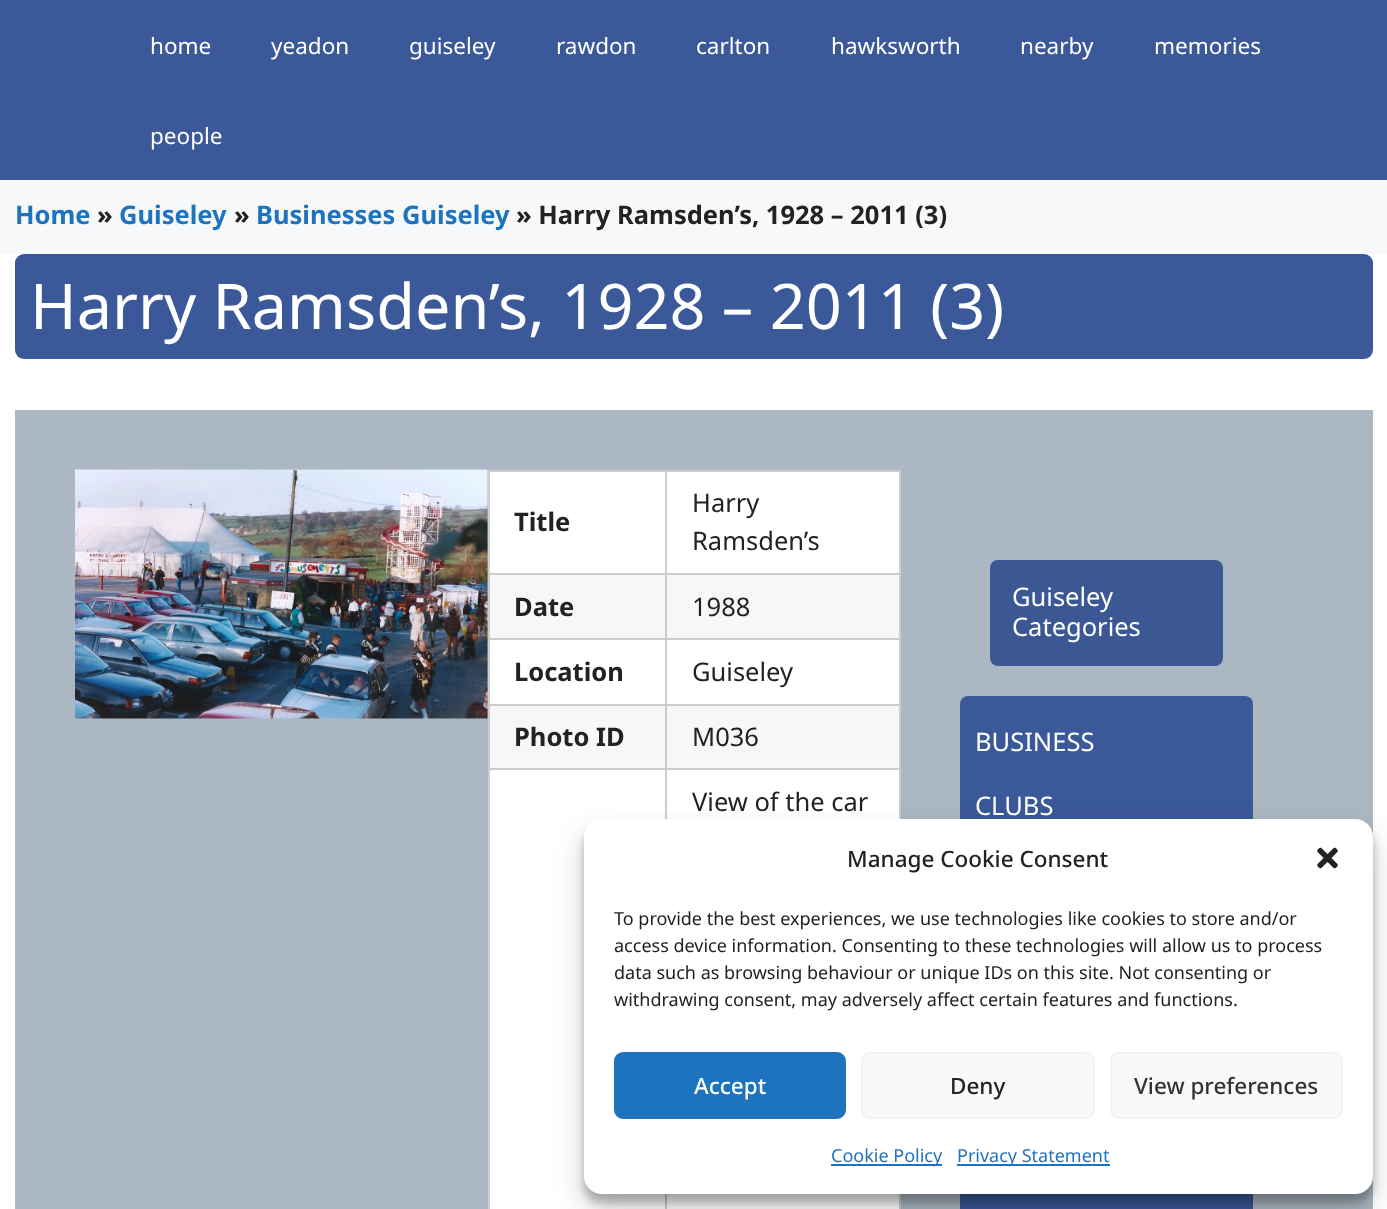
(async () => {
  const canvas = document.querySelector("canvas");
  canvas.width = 1387;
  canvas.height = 1209;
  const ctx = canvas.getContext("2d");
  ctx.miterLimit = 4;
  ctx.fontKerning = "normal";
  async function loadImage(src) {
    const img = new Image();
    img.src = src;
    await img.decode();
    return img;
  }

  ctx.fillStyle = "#f7f8f9";
  ctx.fillRect(0, 0, 1387, 1209);
  ctx.fillStyle = "#3b5898";
  ctx.fillRect(0, 0, 1387, 180);
  ctx.fillStyle = "#ffffff";
  ctx.fillRect(0, 254, 1387, 955);
  ctx.fillStyle = "#3b5898";
  ctx.beginPath();
  ctx.roundRect(15, 254, 1358, 105, 9);
  ctx.fill();
  ctx.fillStyle = "#abb8c3";
  ctx.fillRect(15, 410, 1358, 799);
  ctx.drawImage(await loadImage("img/1.png"), 75, 469, 413, 250);
  for (const [x, y, w, h, color] of [
    [488, 470, 412, 2, "#cccccc"],
    [899, 470, 2, 739, "#cccccc"],
    [488, 470, 2, 739, "#cccccc"],
    [490, 472, 175, 101, "#ffffff"],
    [667, 472, 232, 101, "#ffffff"],
    [665, 573, 235, 2, "#cccccc"],
    [665, 638, 235, 2, "#cccccc"],
    [665, 704, 235, 2, "#cccccc"],
    [665, 768, 235, 2, "#cccccc"],
    [665, 768, 2, 441, "#cccccc"],
    [488, 768, 178, 2, "#cccccc"],
    [665, 704, 2, 66, "#cccccc"],
    [488, 704, 178, 2, "#cccccc"],
    [665, 638, 2, 67, "#cccccc"],
    [488, 638, 178, 2, "#cccccc"],
    [665, 573, 2, 66, "#cccccc"],
    [488, 573, 178, 2, "#cccccc"],
    [665, 470, 2, 105, "#cccccc"],
    [490, 575, 175, 63, "#f7f7f7"],
    [667, 575, 232, 63, "#f7f7f7"],
    [490, 640, 175, 64, "#ffffff"],
    [667, 640, 232, 64, "#ffffff"],
    [490, 706, 175, 62, "#f7f7f7"],
    [667, 706, 232, 62, "#f7f7f7"],
    [490, 770, 175, 439, "#ffffff"],
    [667, 770, 232, 439, "#ffffff"],
  ]) {
    ctx.fillStyle = color;
    ctx.fillRect(x, y, w, h);
  }
  ctx.fillStyle = "#3b5895";
  ctx.beginPath();
  ctx.roundRect(990, 560, 233, 106, 8);
  ctx.fill();
  ctx.fillStyle = "#3b5898";
  ctx.beginPath();
  ctx.roundRect(960, 696, 293, 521, 8);
  ctx.fill();
  ctx.fillStyle = "rgba(0, 0, 0, 0.23)";
  ctx.filter = "blur(4.5px)";
  ctx.beginPath();
  ctx.roundRect(584, 828, 789, 375, 18);
  ctx.fill();
  ctx.filter = "none";
  ctx.fillStyle = "rgba(0, 0, 0, 0.19)";
  ctx.filter = "blur(15px)";
  ctx.beginPath();
  ctx.roundRect(584, 834, 789, 375, 18);
  ctx.fill();
  ctx.filter = "none";
  ctx.fillStyle = "#ffffff";
  ctx.beginPath();
  ctx.roundRect(584, 819, 789, 375, 18);
  ctx.fill();
  ctx.drawImage(await loadImage("img/2.png"), 1317, 847, 21, 22);
  ctx.fillStyle = "#1e73be";
  ctx.beginPath();
  ctx.roundRect(615, 1053, 230, 65, 8);
  ctx.fill();
  ctx.strokeStyle = "#1e73be";
  ctx.lineWidth = 2;
  ctx.stroke();
  ctx.fillStyle = "#f9f9f9";
  ctx.beginPath();
  ctx.roundRect(862, 1053, 232, 65, 8);
  ctx.fill();
  ctx.strokeStyle = "#f2f2f2";
  ctx.stroke();
  ctx.beginPath();
  ctx.roundRect(1111, 1053, 231, 65, 8);
  ctx.fill();
  ctx.stroke();
  ctx.fillStyle = "#1e73be";
  ctx.fillRect(831, 1164, 111, 2);
  ctx.fillRect(957, 1164, 153, 2);
  ctx.font = "22.5px Noto Sans";
  ctx.fillStyle = "#ffffff";
  for (const [text, x, y] of [
    ["home", 150, 54],
    ["yeadon", 271, 54],
    ["guiseley", 409, 54],
    ["rawdon", 556, 54],
    ["carlton", 696, 54],
    ["hawksworth", 831, 54],
    ["nearby", 1020, 54],
    ["memories", 1154, 54],
    ["people", 150, 144],
  ]) {
    ctx.fillText(text, x, y);
  }
  ctx.font = "bold 25.5px Noto Sans";
  ctx.fillStyle = "#1e73be";
  ctx.fillText("Home", 15, 224);
  ctx.fillStyle = "#222222";
  ctx.fillText("»", 97, 224);
  ctx.fillStyle = "#1e73be";
  ctx.fillText("Guiseley", 119, 224);
  ctx.fillStyle = "#222222";
  ctx.fillText("»", 234, 224);
  ctx.fillStyle = "#1e73be";
  ctx.fillText("Businesses Guiseley", 256, 224);
  ctx.fillStyle = "#222222";
  ctx.fillText("» Harry Ramsden’s, 1928 – 2011 (3)", 516, 224);
  ctx.font = "63px Noto Sans";
  ctx.fillStyle = "#ffffff";
  ctx.fillText("Harry Ramsden’s, 1928 – 2011 (3)", 30, 329);
  ctx.font = "bold 25.5px Noto Sans";
  ctx.fillStyle = "#222222";
  ctx.fillText("Title", 514, 531);
  ctx.font = "25.5px Noto Sans";
  ctx.fillText("Harry", 692, 512);
  ctx.fillText("Ramsden’s", 692, 550);
  ctx.font = "bold 25.5px Noto Sans";
  ctx.fillText("Date", 514, 616);
  ctx.font = "25.5px Noto Sans";
  ctx.fillText("1988", 692, 616);
  ctx.font = "bold 25.5px Noto Sans";
  ctx.fillText("Location", 514, 681);
  ctx.font = "25.5px Noto Sans";
  ctx.fillText("Guiseley", 692, 681);
  ctx.font = "bold 25.5px Noto Sans";
  ctx.fillText("Photo ID", 514, 746);
  ctx.font = "25.5px Noto Sans";
  ctx.fillText("M036", 692, 746);
  ctx.fillText("View of the car", 692, 811);
  ctx.fillStyle = "#ffffff";
  for (const [text, x, y] of [
    ["Guiseley", 1012, 606],
    ["Categories", 1012, 636],
    ["BUSINESS", 975, 751],
    ["CLUBS", 975, 815],
  ]) {
    ctx.fillText(text, x, y);
  }
  ctx.font = "500 22.5px Noto Sans";
  ctx.fillStyle = "#222222";
  ctx.fillText("Manage Cookie Consent", 847, 867);
  ctx.font = "18px Noto Sans";
  for (const [text, x, y] of [
    ["To provide the best experiences, we use technologies like cookies to store and/or", 614, 925],
    ["access device information. Consenting to these technologies will allow us to process", 614, 952],
    ["data such as browsing behaviour or unique IDs on this site. Not consenting or", 614, 979],
    ["withdrawing consent, may adversely affect certain features and functions.", 614, 1006],
  ]) {
    ctx.fillText(text, x, y);
  }
  ctx.font = "500 22.5px Noto Sans";
  ctx.fillStyle = "#ffffff";
  ctx.fillText("Accept", 694, 1094);
  ctx.fillStyle = "#222222";
  ctx.fillText("Deny", 950, 1094);
  ctx.fillStyle = "#333333";
  ctx.fillText("View preferences", 1134, 1094);
  ctx.font = "18px Noto Sans";
  ctx.fillStyle = "#1e73be";
  ctx.fillText("Cookie Policy", 831, 1162);
  ctx.fillText("Privacy Statement", 957, 1162);
})();
